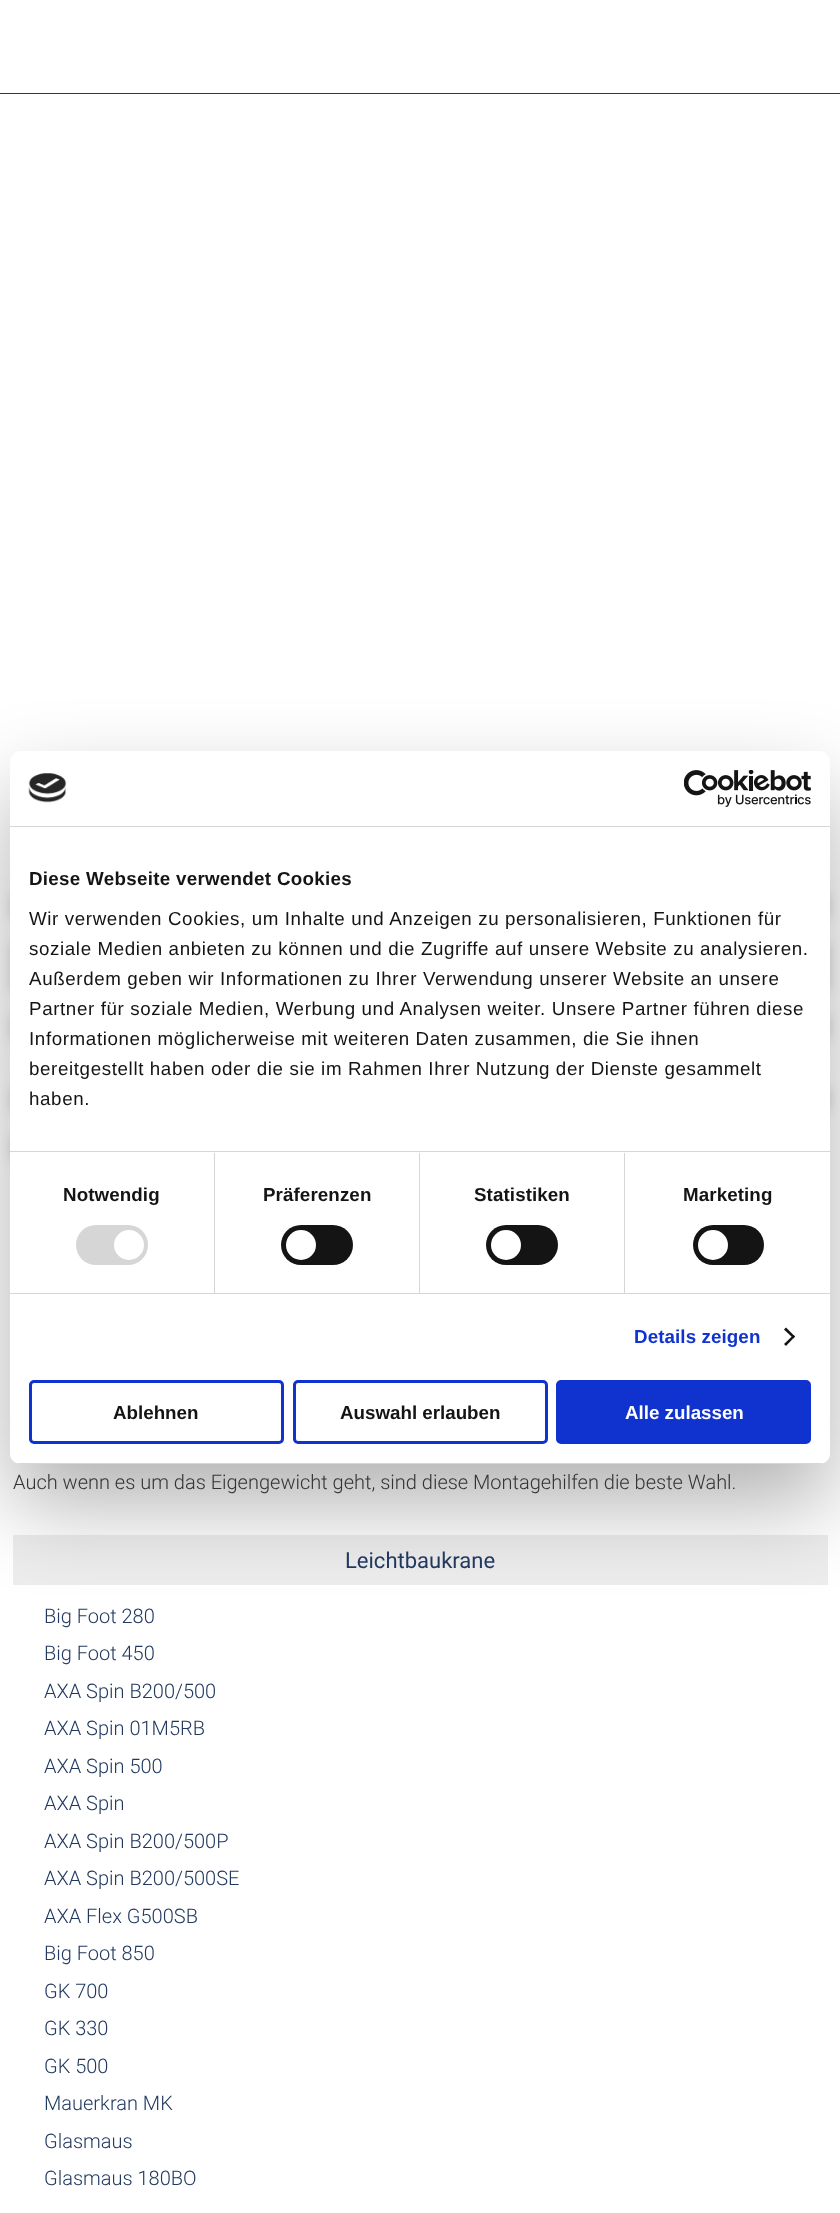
(async () => {
  const canvas = document.querySelector("canvas");
  canvas.width = 840;
  canvas.height = 2213;
  const ctx = canvas.getContext("2d");
  ctx.miterLimit = 4;
  ctx.fontKerning = "normal";
  async function loadImage(src) {
    const img = new Image();
    img.src = src;
    await img.decode();
    return img;
  }
  let path;

  ctx.fillStyle = "#ffffff";
  ctx.fillRect(0, 0, 840, 2213);
  ctx.fillStyle = "#ededed";
  ctx.fillRect(13, 1535, 815, 50);
  ctx.fillStyle = "rgba(0, 0, 0, 0.3)";
  ctx.filter = "blur(42.5px)";
  ctx.beginPath();
  ctx.roundRect(10, 791, 820, 713, 10);
  ctx.fill();
  ctx.filter = "none";
  ctx.fillStyle = "#aaaaaa";
  ctx.filter = "blur(6px)";
  ctx.beginPath();
  ctx.rect(13, 894, 191, 24);
  ctx.fill();
  ctx.filter = "none";
  ctx.filter = "blur(6px)";
  ctx.beginPath();
  ctx.rect(636, 894, 192, 24);
  ctx.fill();
  ctx.filter = "none";
  ctx.filter = "blur(6px)";
  ctx.beginPath();
  ctx.rect(13, 943, 191, 47);
  ctx.fill();
  ctx.filter = "none";
  ctx.filter = "blur(6px)";
  ctx.beginPath();
  ctx.rect(636, 943, 192, 47);
  ctx.fill();
  ctx.filter = "none";
  ctx.filter = "blur(6px)";
  ctx.beginPath();
  ctx.rect(13, 1015, 191, 24);
  ctx.fill();
  ctx.filter = "none";
  ctx.filter = "blur(6px)";
  ctx.beginPath();
  ctx.rect(636, 1015, 192, 24);
  ctx.fill();
  ctx.filter = "none";
  ctx.filter = "blur(6px)";
  ctx.beginPath();
  ctx.rect(13, 1088, 191, 23);
  ctx.fill();
  ctx.filter = "none";
  ctx.filter = "blur(6px)";
  ctx.beginPath();
  ctx.rect(636, 1088, 192, 23);
  ctx.fill();
  ctx.filter = "none";
  ctx.filter = "blur(6px)";
  ctx.beginPath();
  ctx.rect(13, 1136, 191, 24);
  ctx.fill();
  ctx.filter = "none";
  ctx.fillStyle = "#ffffff";
  ctx.beginPath();
  ctx.roundRect(10, 751, 820, 713, 10);
  ctx.fill();
  ctx.fillStyle = "#d6d6d6";
  ctx.fillRect(10, 826, 820, 1);
  ctx.drawImage(await loadImage("img/1.png"), 28, 773, 39, 30);
  ctx.drawImage(await loadImage("img/2.png"), 684, 770, 127, 37);
  for (const [x, y, w, h, color] of [
    [10, 1151, 820, 1, "#d6d6d6"],
    [10, 1293, 820, 1, "#d6d6d6"],
    [214, 1153, 1, 140, "#d6d6d6"],
  ]) {
    ctx.fillStyle = color;
    ctx.fillRect(x, y, w, h);
  }
  ctx.beginPath();
  ctx.roundRect(76, 1225, 72, 40, 20);
  ctx.fill();
  ctx.fillStyle = "#ffffff";
  ctx.beginPath();
  ctx.arc(129, 1245, 15, 0, Math.PI * 2);
  ctx.fill();
  ctx.fillStyle = "#d6d6d6";
  ctx.fillRect(419, 1153, 1, 140);
  ctx.fillStyle = "#141414";
  ctx.beginPath();
  ctx.roundRect(281, 1225, 72, 40, 20);
  ctx.fill();
  ctx.fillStyle = "#ffffff";
  ctx.beginPath();
  ctx.arc(301, 1245, 15, 0, Math.PI * 2);
  ctx.fill();
  ctx.fillStyle = "#d6d6d6";
  ctx.fillRect(624, 1153, 1, 140);
  ctx.fillStyle = "#141414";
  ctx.beginPath();
  ctx.roundRect(486, 1225, 72, 40, 20);
  ctx.fill();
  ctx.fillStyle = "#ffffff";
  ctx.beginPath();
  ctx.arc(506, 1245, 15, 0, Math.PI * 2);
  ctx.fill();
  ctx.fillStyle = "#141414";
  ctx.beginPath();
  ctx.roundRect(693, 1225, 71, 40, 20);
  ctx.fill();
  ctx.fillStyle = "#ffffff";
  ctx.beginPath();
  ctx.arc(713, 1245, 15, 0, Math.PI * 2);
  ctx.fill();
  ctx.fillStyle = "#141414";
  path = new Path2D("M786 1327.5L795 1336.5L793.5 1338.5L784 1329.5Z");
  ctx.fill(path);
  path = new Path2D("M793.5 1335L795 1336.5L786 1346L784 1344Z");
  ctx.fill(path);
  ctx.save();
  ctx.beginPath();
  ctx.roundRect(10, 751, 820, 713, 10);
  ctx.clip();
  ctx.fillStyle = "#d6d6d6";
  ctx.fillRect(10, 1463, 820, 1);
  ctx.restore();
  ctx.beginPath();
  ctx.roundRect(30.5, 1381.5, 252, 61, 3.5);
  ctx.strokeStyle = "#1032cf";
  ctx.lineWidth = 3;
  ctx.stroke();
  ctx.beginPath();
  ctx.roundRect(294.5, 1381.5, 252, 61, 3.5);
  ctx.stroke();
  ctx.fillStyle = "#1032cf";
  ctx.beginPath();
  ctx.roundRect(557.5, 1381.5, 252, 61, 3.5);
  ctx.fill();
  ctx.stroke();
  ctx.fillStyle = "#21395f";
  ctx.fillRect(0, 93, 840, 1);
  ctx.letterSpacing = "0.3px";
  ctx.font = "bold 18.75px Liberation Sans";
  ctx.fillStyle = "#141414";
  ctx.fillText("Diese Webseite verwendet Cookies", 29, 885);
  ctx.letterSpacing = "0.62px";
  ctx.font = "18.75px Liberation Sans";
  for (const [text, x, y] of [
    ["Wir verwenden Cookies, um Inhalte und Anzeigen zu personalisieren, Funktionen für", 29, 925],
    ["soziale Medien anbieten zu können und die Zugriffe auf unsere Website zu analysieren.", 29, 955],
    ["Außerdem geben wir Informationen zu Ihrer Verwendung unserer Website an unsere", 29, 985],
    ["Partner für soziale Medien, Werbung und Analysen weiter. Unsere Partner führen diese", 29, 1015],
    ["Informationen möglicherweise mit weiteren Daten zusammen, die Sie ihnen", 29, 1045],
    ["bereitgestellt haben oder die sie im Rahmen Ihrer Nutzung der Dienste gesammelt", 29, 1075],
    ["haben.", 29, 1105],
  ]) {
    ctx.fillText(text, x, y);
  }
  ctx.letterSpacing = "0.1px";
  ctx.font = "bold 18.75px Liberation Sans";
  for (const [text, x, y] of [
    ["Notwendig", 63, 1201],
    ["Präferenzen", 263, 1201],
    ["Statistiken", 474, 1201],
    ["Marketing", 683, 1201],
  ]) {
    ctx.fillText(text, x, y);
  }
  ctx.fillStyle = "#1032cf";
  ctx.fillText("Details zeigen", 634, 1343);
  ctx.letterSpacing = "0px";
  ctx.fillStyle = "#141414";
  ctx.fillText("Ablehnen", 113, 1419);
  ctx.fillText("Auswahl erlauben", 340, 1419);
  ctx.fillStyle = "#ffffff";
  ctx.fillText("Alle zulassen", 625, 1419);
  ctx.font = "300 20px Roboto";
  ctx.fillStyle = "#333333";
  ctx.fillText("Auch wenn es um das Eigengewicht geht, sind diese Montagehilfen die beste Wahl.", 13, 1489);
  ctx.font = "22px Roboto";
  ctx.fillStyle = "#21395f";
  ctx.fillText("Leichtbaukrane", 345, 1568);
  ctx.font = "300 20px Roboto";
  for (const [text, x, y] of [
    ["Big Foot 280", 44, 1623],
    ["Big Foot 450", 44, 1660],
    ["AXA Spin B200/500", 44, 1698],
    ["AXA Spin 01M5RB", 44, 1735],
    ["AXA Spin 500", 44, 1773],
    ["AXA Spin", 44, 1810],
    ["AXA Spin B200/500P", 44, 1848],
    ["AXA Spin B200/500SE", 44, 1885],
    ["AXA Flex G500SB", 44, 1923],
    ["Big Foot 850", 44, 1960],
    ["GK 700", 44, 1998],
    ["GK 330", 44, 2035],
    ["GK 500", 44, 2073],
    ["Mauerkran MK", 44, 2110],
    ["Glasmaus", 44, 2148],
    ["Glasmaus 180BO", 44, 2185],
  ]) {
    ctx.fillText(text, x, y);
  }
})();
